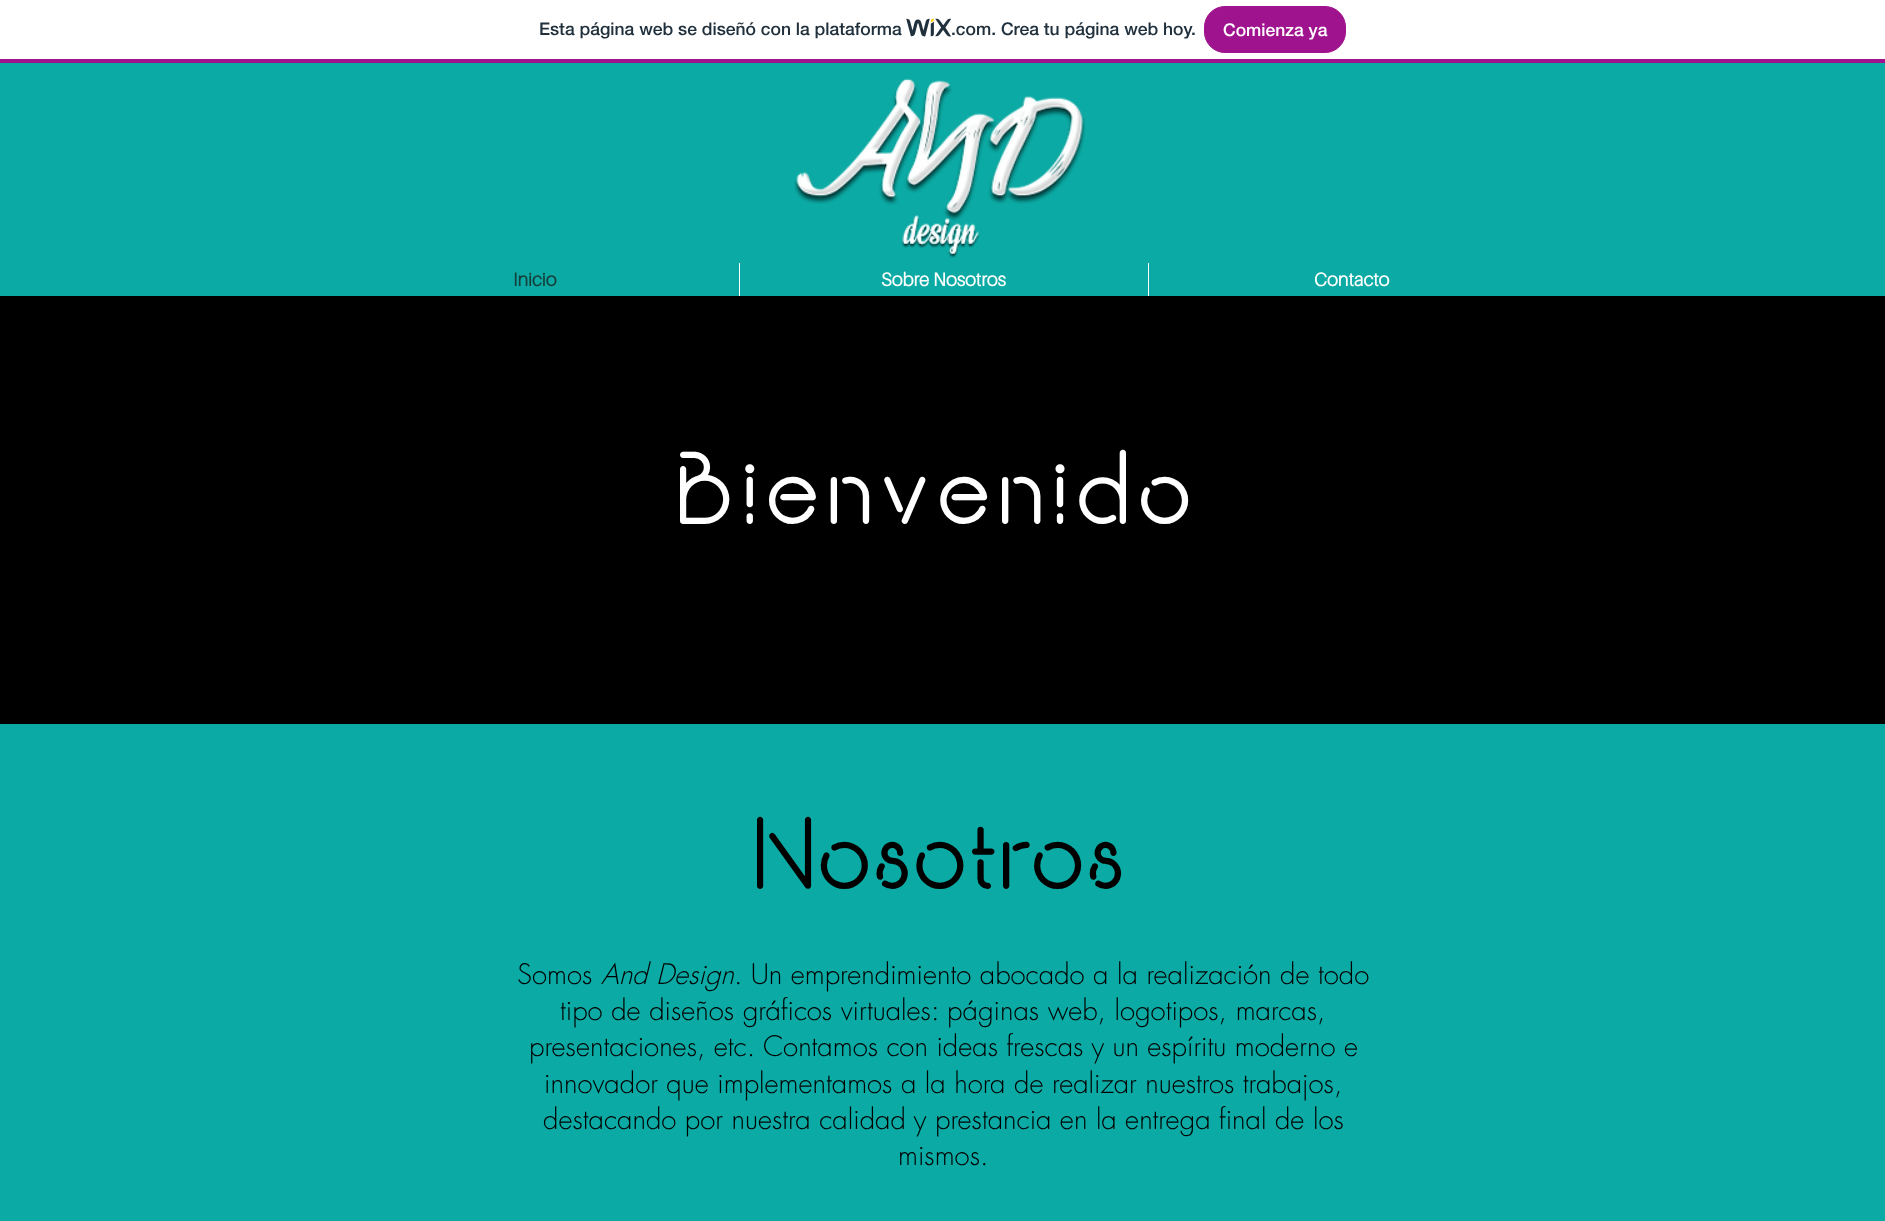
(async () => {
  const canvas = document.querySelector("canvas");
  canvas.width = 1885;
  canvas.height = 1221;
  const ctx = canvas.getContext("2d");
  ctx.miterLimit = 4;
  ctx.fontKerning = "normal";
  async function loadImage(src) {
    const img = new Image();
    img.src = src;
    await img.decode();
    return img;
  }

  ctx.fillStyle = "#000000";
  ctx.fillRect(0, 0, 1885, 1221);
  ctx.fillStyle = "#ffffff";
  ctx.fillRect(0, 0, 1885, 59);
  ctx.fillStyle = "#a0138e";
  ctx.fillRect(0, 59, 1885, 4);
  ctx.drawImage(await loadImage("img/1.png"), 906, 18, 45, 19);
  ctx.beginPath();
  ctx.roundRect(1204.5, 6.5, 141, 46, 20.5);
  ctx.fill();
  ctx.strokeStyle = "#a0138e";
  ctx.stroke();
  ctx.fillStyle = "#0caaa4";
  ctx.fillRect(0, 63, 1885, 233);
  ctx.drawImage(await loadImage("img/2.png"), 794, 78, 292, 180);
  for (const [x, y, w, h, color] of [
    [739, 263, 1, 33, "#ffffff"],
    [1148, 263, 1, 33, "#ffffff"],
    [0, 724, 1885, 497, "#0caaa4"],
  ]) {
    ctx.fillStyle = color;
    ctx.fillRect(x, y, w, h);
  }
  ctx.font = "500 17.5px 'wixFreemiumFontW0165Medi'";
  ctx.fillStyle = "#20303c";
  ctx.fillText("Esta página web se diseñó con la plataforma", 539, 35);
  ctx.fillText(".com. Crea tu página web hoy.", 951, 35);
  ctx.fillStyle = "#ffffff";
  ctx.fillText("Comienza ya", 1223, 36);
  ctx.font = "bold 18.75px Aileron";
  ctx.fillStyle = "#163e3a";
  ctx.fillText("Inicio", 513, 286);
  ctx.fillStyle = "#ffffff";
  ctx.fillText("Sobre Nosotros", 881, 286);
  ctx.fillText("Contacto", 1314, 286);
  ctx.letterSpacing = "5.25px";
  ctx.font = "bold 106.25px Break";
  ctx.fillText("Bienvenido", 680, 524);
  ctx.letterSpacing = "-1px";
  ctx.fillStyle = "#000000";
  ctx.fillText("Nosotros", 757, 889);
  ctx.letterSpacing = "0px";
  ctx.font = "300 27.5px futura";
  ctx.fillText("Somos", 517, 984);
  ctx.font = "italic 300 27.5px futura";
  ctx.fillText("And Design", 601, 984);
  ctx.font = "300 27.5px futura";
  for (const [text, x, y] of [
    [". Un emprendimiento abocado a la realización de todo", 734, 984],
    ["tipo de diseños gráficos virtuales: páginas web, logotipos, marcas,", 560, 1020],
    ["presentaciones, etc. Contamos con ideas frescas y un espíritu moderno e", 529, 1056],
    ["innovador que implementamos a la hora de realizar nuestros trabajos,", 544, 1093],
    ["destacando por nuestra calidad y prestancia en la entrega final de los", 543, 1129],
    ["mismos.", 898, 1165],
  ]) {
    ctx.fillText(text, x, y);
  }
})();
